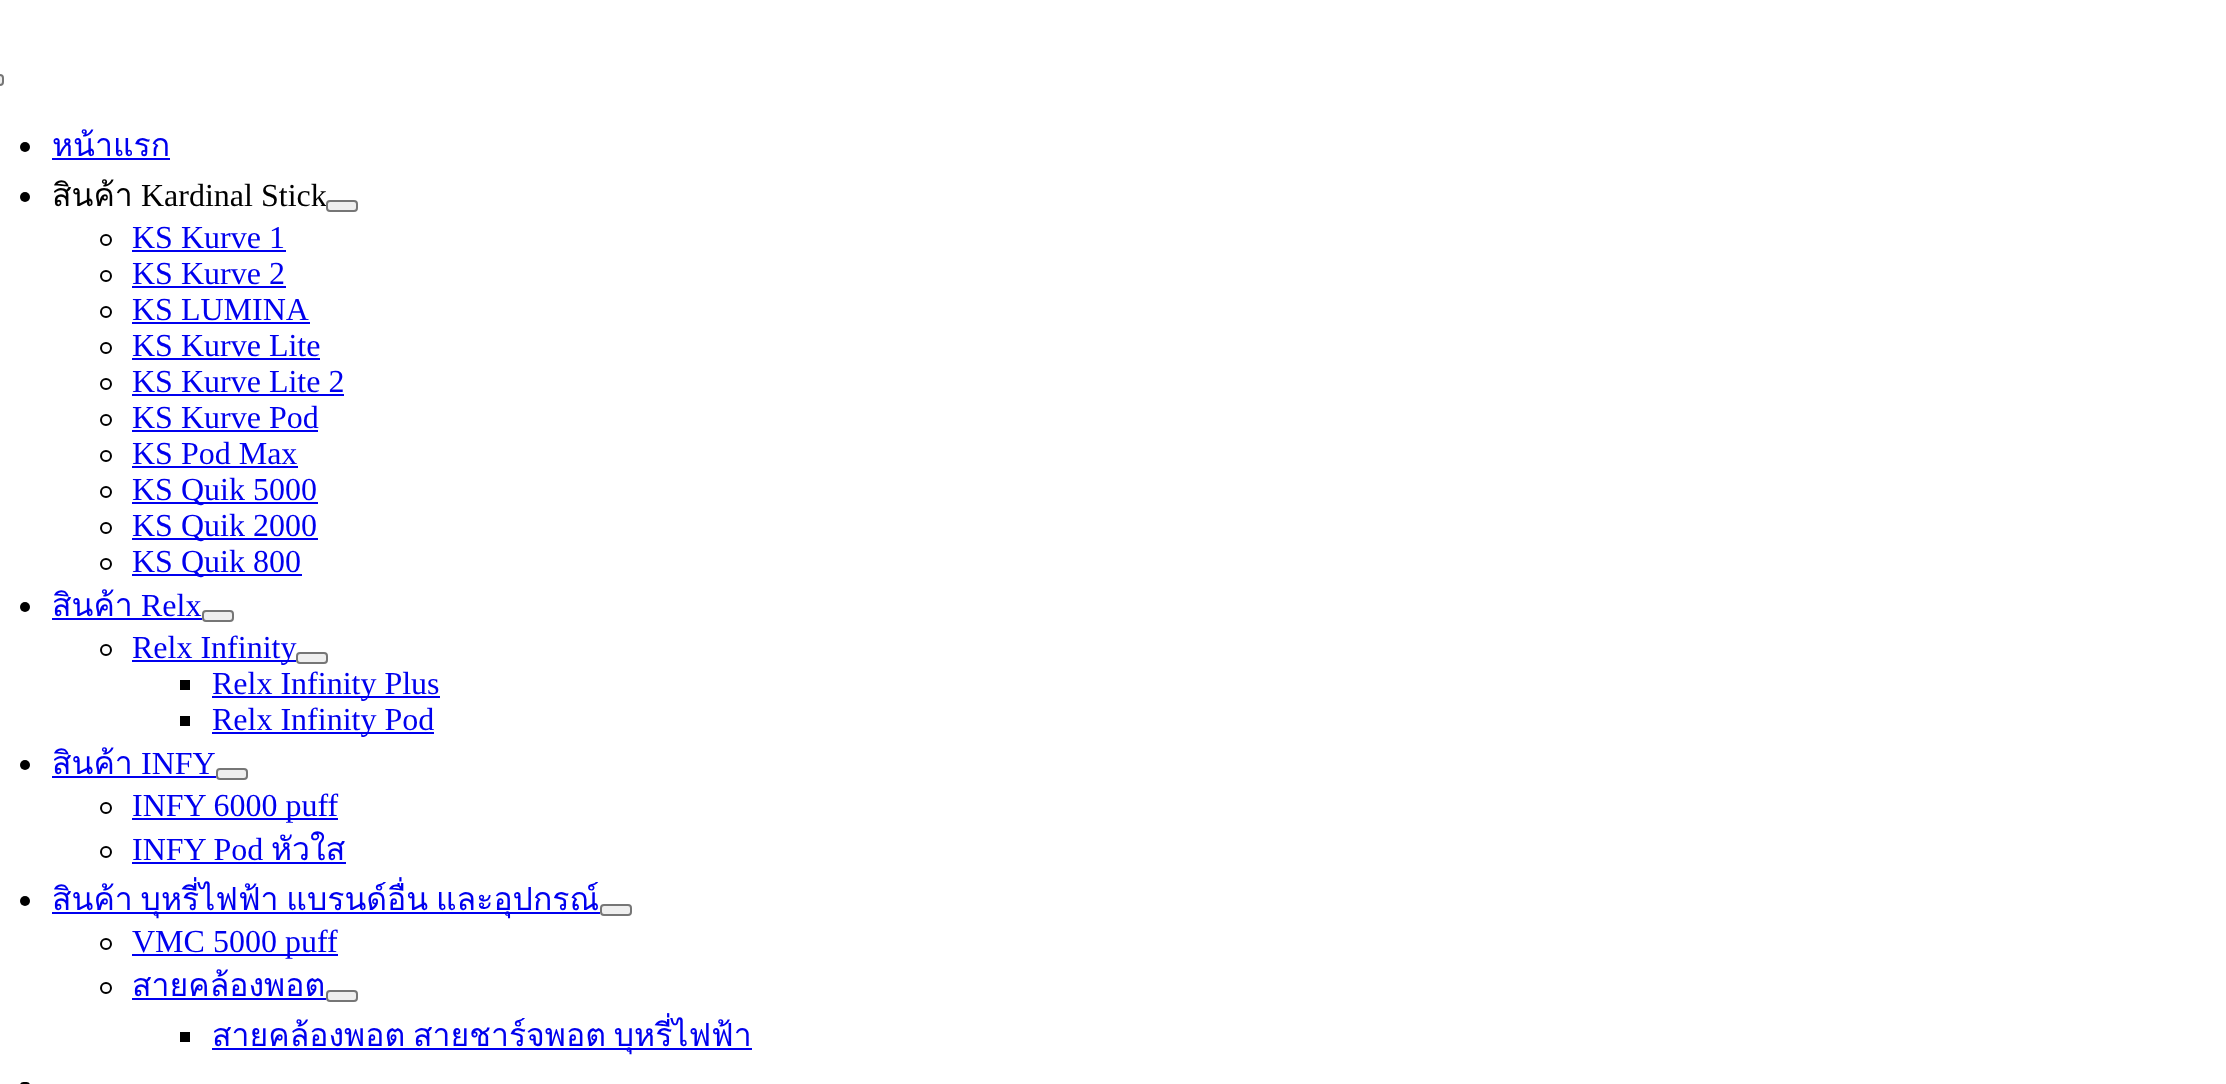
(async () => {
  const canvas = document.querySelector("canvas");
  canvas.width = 2226;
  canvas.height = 1084;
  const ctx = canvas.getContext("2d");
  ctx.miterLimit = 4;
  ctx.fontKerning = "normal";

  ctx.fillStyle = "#ffffff";
  ctx.fillRect(0, 0, 2226, 1084);
  ctx.fillStyle = "#efefef";
  ctx.beginPath();
  ctx.roundRect(-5, 75, 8, 10, 3);
  ctx.fill();
  ctx.strokeStyle = "#767676";
  ctx.lineWidth = 2;
  ctx.stroke();
  ctx.fillStyle = "#000000";
  ctx.beginPath();
  ctx.arc(25, 147, 5, 0, Math.PI * 2);
  ctx.fill();
  ctx.fillStyle = "#0000ee";
  ctx.fillRect(52, 158, 118, 2);
  ctx.fillStyle = "#000000";
  ctx.beginPath();
  ctx.arc(25, 197, 5, 0, Math.PI * 2);
  ctx.fill();
  ctx.beginPath();
  ctx.arc(106, 240, 5, 0, Math.PI * 2);
  ctx.strokeStyle = "#000000";
  ctx.stroke();
  ctx.fillStyle = "#0000ee";
  ctx.fillRect(132, 250, 154, 2);
  ctx.beginPath();
  ctx.arc(106, 276, 5, 0, Math.PI * 2);
  ctx.stroke();
  ctx.fillRect(132, 286, 154, 2);
  ctx.beginPath();
  ctx.arc(106, 312, 5, 0, Math.PI * 2);
  ctx.stroke();
  ctx.fillRect(132, 322, 178, 2);
  ctx.beginPath();
  ctx.arc(106, 348, 5, 0, Math.PI * 2);
  ctx.stroke();
  ctx.fillRect(132, 358, 188, 2);
  ctx.beginPath();
  ctx.arc(106, 384, 5, 0, Math.PI * 2);
  ctx.stroke();
  ctx.fillRect(132, 394, 212, 2);
  ctx.beginPath();
  ctx.arc(106, 420, 5, 0, Math.PI * 2);
  ctx.stroke();
  ctx.fillRect(132, 430, 186, 2);
  ctx.beginPath();
  ctx.arc(106, 456, 5, 0, Math.PI * 2);
  ctx.stroke();
  ctx.fillRect(132, 466, 166, 2);
  ctx.beginPath();
  ctx.arc(106, 492, 5, 0, Math.PI * 2);
  ctx.stroke();
  ctx.fillRect(132, 502, 186, 2);
  ctx.beginPath();
  ctx.arc(106, 528, 5, 0, Math.PI * 2);
  ctx.stroke();
  ctx.fillRect(132, 538, 186, 2);
  ctx.beginPath();
  ctx.arc(106, 564, 5, 0, Math.PI * 2);
  ctx.stroke();
  ctx.fillRect(132, 574, 170, 2);
  ctx.fillStyle = "#000000";
  ctx.beginPath();
  ctx.arc(25, 607, 5, 0, Math.PI * 2);
  ctx.fill();
  ctx.fillStyle = "#0000ee";
  ctx.fillRect(52, 618, 150, 2);
  ctx.fillStyle = "#efefef";
  ctx.beginPath();
  ctx.roundRect(203, 611, 30, 10, 3);
  ctx.fill();
  ctx.strokeStyle = "#767676";
  ctx.stroke();
  ctx.beginPath();
  ctx.arc(106, 650, 5, 0, Math.PI * 2);
  ctx.strokeStyle = "#000000";
  ctx.stroke();
  for (const [x, y, w, h, color] of [
    [132, 660, 164, 2, "#0000ee"],
    [180, 680, 10, 10, "#000000"],
    [212, 696, 228, 2, "#0000ee"],
    [180, 716, 10, 10, "#000000"],
    [212, 732, 222, 2, "#0000ee"],
  ]) {
    ctx.fillStyle = color;
    ctx.fillRect(x, y, w, h);
  }
  ctx.fillStyle = "#000000";
  ctx.beginPath();
  ctx.arc(25, 765, 5, 0, Math.PI * 2);
  ctx.fill();
  ctx.fillStyle = "#0000ee";
  ctx.fillRect(52, 776, 164, 2);
  ctx.fillStyle = "#efefef";
  ctx.beginPath();
  ctx.roundRect(217, 769, 30, 10, 3);
  ctx.fill();
  ctx.strokeStyle = "#767676";
  ctx.stroke();
  ctx.beginPath();
  ctx.arc(106, 808, 5, 0, Math.PI * 2);
  ctx.strokeStyle = "#000000";
  ctx.stroke();
  ctx.fillStyle = "#0000ee";
  ctx.fillRect(132, 818, 206, 2);
  ctx.beginPath();
  ctx.arc(106, 852, 5, 0, Math.PI * 2);
  ctx.stroke();
  ctx.fillRect(132, 862, 214, 2);
  ctx.fillStyle = "#000000";
  ctx.beginPath();
  ctx.arc(25, 901, 5, 0, Math.PI * 2);
  ctx.fill();
  ctx.fillStyle = "#0000ee";
  ctx.fillRect(52, 912, 548, 2);
  ctx.fillStyle = "#efefef";
  ctx.beginPath();
  ctx.roundRect(601, 905, 30, 10, 3);
  ctx.fill();
  ctx.strokeStyle = "#767676";
  ctx.stroke();
  ctx.beginPath();
  ctx.arc(106, 944, 5, 0, Math.PI * 2);
  ctx.strokeStyle = "#000000";
  ctx.stroke();
  ctx.fillStyle = "#0000ee";
  ctx.fillRect(132, 954, 206, 2);
  ctx.beginPath();
  ctx.arc(106, 988, 5, 0, Math.PI * 2);
  ctx.stroke();
  ctx.fillRect(132, 998, 194, 2);
  ctx.fillStyle = "#efefef";
  ctx.beginPath();
  ctx.roundRect(327, 991, 30, 10, 3);
  ctx.fill();
  ctx.strokeStyle = "#767676";
  ctx.stroke();
  ctx.fillStyle = "#000000";
  ctx.fillRect(180, 1032, 10, 10);
  ctx.fillStyle = "#0000ee";
  ctx.fillRect(212, 1048, 540, 2);
  ctx.fillStyle = "#000000";
  ctx.beginPath();
  ctx.roundRect(20, 1082, 10, 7, 5);
  ctx.fill();
  ctx.font = "32px Loma";
  ctx.fillStyle = "#0000ee";
  ctx.fillText("หน้าแรก", 52, 156);
  ctx.fillStyle = "#000000";
  ctx.fillText("สินค้า", 52, 206);
  ctx.font = "32px Liberation Serif";
  ctx.fillText("Kardinal Stick", 141, 206);
  ctx.fillStyle = "#efefef";
  ctx.beginPath();
  ctx.roundRect(327, 201, 30, 10, 3);
  ctx.fill();
  ctx.stroke();
  ctx.fillStyle = "#0000ee";
  for (const [text, x, y] of [
    ["KS Kurve 1", 132, 248],
    ["KS Kurve 2", 132, 284],
    ["KS LUMINA", 132, 320],
    ["KS Kurve Lite", 132, 356],
    ["KS Kurve Lite 2", 132, 392],
    ["KS Kurve Pod", 132, 428],
    ["KS Pod Max", 132, 464],
    ["KS Quik 5000", 132, 500],
    ["KS Quik 2000", 132, 536],
    ["KS Quik 800", 132, 572],
  ]) {
    ctx.fillText(text, x, y);
  }
  ctx.font = "32px Loma";
  ctx.fillText("สินค้า", 52, 616);
  ctx.font = "32px Liberation Serif";
  ctx.fillText("Relx", 141, 616);
  ctx.fillText("Relx Infinity", 132, 658);
  ctx.fillStyle = "#efefef";
  ctx.beginPath();
  ctx.roundRect(297, 653, 30, 10, 3);
  ctx.fill();
  ctx.stroke();
  ctx.fillStyle = "#0000ee";
  ctx.fillText("Relx Infinity Plus", 212, 694);
  ctx.fillText("Relx Infinity Pod", 212, 730);
  ctx.font = "32px Loma";
  ctx.fillText("สินค้า", 52, 774);
  ctx.font = "32px Liberation Serif";
  for (const [text, x, y] of [
    ["INFY", 141, 774],
    ["INFY 6000 puff", 132, 816],
    ["INFY Pod", 132, 860],
  ]) {
    ctx.fillText(text, x, y);
  }
  ctx.font = "32px Loma";
  ctx.fillText("หัวใส", 271, 860);
  ctx.wordSpacing = "-3px";
  ctx.fillText("สินค้า บุหรี่ไฟฟ้า แบรนด์อื่น และอุปกรณ์", 52, 910);
  ctx.wordSpacing = "0px";
  ctx.font = "32px Liberation Serif";
  ctx.fillText("VMC 5000 puff", 132, 952);
  ctx.font = "32px Loma";
  ctx.fillText("สายคล้องพอต", 132, 996);
  ctx.wordSpacing = "-3px";
  ctx.fillText("สายคล้องพอต สายชาร์จพอต บุหรี่ไฟฟ้า", 212, 1046);
})();
